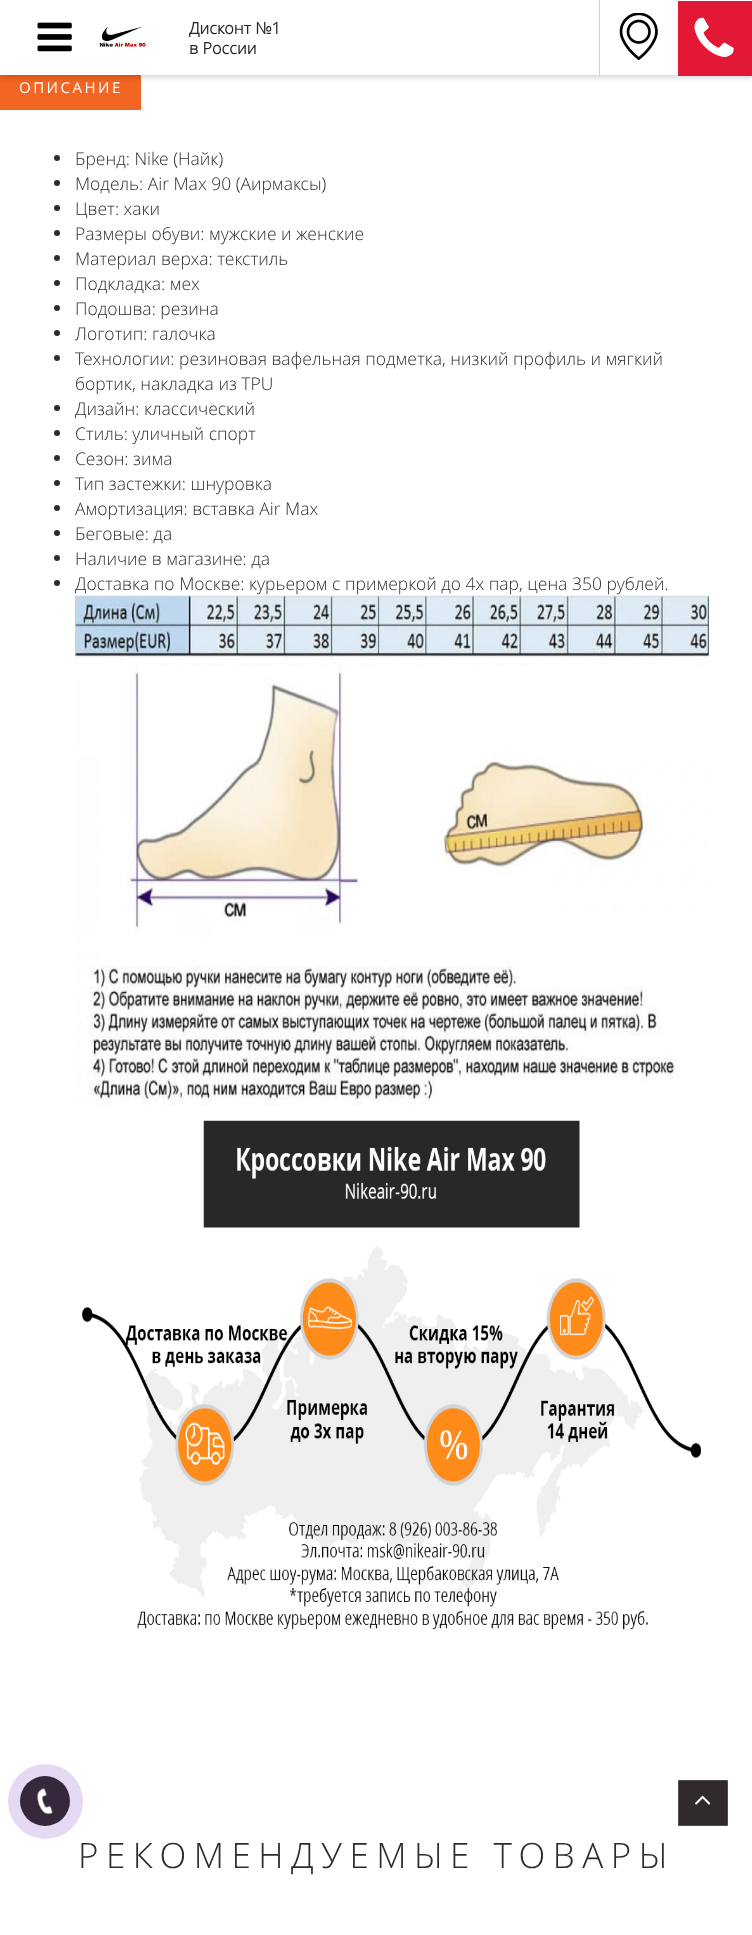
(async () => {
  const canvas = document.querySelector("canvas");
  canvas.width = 752;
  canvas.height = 1935;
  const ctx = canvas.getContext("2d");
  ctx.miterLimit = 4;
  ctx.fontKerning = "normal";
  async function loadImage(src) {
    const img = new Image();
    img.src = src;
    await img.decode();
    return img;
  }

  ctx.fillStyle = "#ffffff";
  ctx.fillRect(0, 0, 752, 1935);
  ctx.fillStyle = "#f26522";
  ctx.fillRect(0, 75, 141, 35);
  ctx.fillStyle = "rgba(0, 0, 0, 0.14)";
  ctx.filter = "blur(2.5px)";
  ctx.beginPath();
  ctx.rect(0, 3, 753, 75);
  ctx.fill();
  ctx.filter = "none";
  ctx.fillStyle = "#ffffff";
  ctx.fillRect(0, 0, 752, 75);
  ctx.drawImage(await loadImage("img/1.png"), 37, 22, 35, 30);
  ctx.drawImage(await loadImage("img/2.png"), 99, 26, 47, 21);
  ctx.fillStyle = "#d0d0d0";
  ctx.fillRect(599, 0, 1, 76);
  ctx.drawImage(await loadImage("img/3.png"), 619, 13, 39, 47);
  ctx.fillStyle = "#e21836";
  ctx.fillRect(678, 1, 74, 75);
  ctx.drawImage(await loadImage("img/4.png"), 694, 17, 40, 40);
  ctx.fillStyle = "#302a2f";
  ctx.beginPath();
  ctx.arc(57, 158, 3, 0, Math.PI * 2);
  ctx.fill();
  ctx.beginPath();
  ctx.arc(57, 183, 3, 0, Math.PI * 2);
  ctx.fill();
  ctx.beginPath();
  ctx.arc(57, 208, 3, 0, Math.PI * 2);
  ctx.fill();
  ctx.beginPath();
  ctx.arc(57, 233, 3, 0, Math.PI * 2);
  ctx.fill();
  ctx.beginPath();
  ctx.arc(57, 258, 3, 0, Math.PI * 2);
  ctx.fill();
  ctx.beginPath();
  ctx.arc(57, 283, 3, 0, Math.PI * 2);
  ctx.fill();
  ctx.beginPath();
  ctx.arc(57, 308, 3, 0, Math.PI * 2);
  ctx.fill();
  ctx.beginPath();
  ctx.arc(57, 333, 3, 0, Math.PI * 2);
  ctx.fill();
  ctx.beginPath();
  ctx.arc(57, 358, 3, 0, Math.PI * 2);
  ctx.fill();
  ctx.beginPath();
  ctx.arc(57, 408, 3, 0, Math.PI * 2);
  ctx.fill();
  ctx.beginPath();
  ctx.arc(57, 433, 3, 0, Math.PI * 2);
  ctx.fill();
  ctx.beginPath();
  ctx.arc(57, 458, 3, 0, Math.PI * 2);
  ctx.fill();
  ctx.beginPath();
  ctx.arc(57, 483, 3, 0, Math.PI * 2);
  ctx.fill();
  ctx.beginPath();
  ctx.arc(57, 508, 3, 0, Math.PI * 2);
  ctx.fill();
  ctx.beginPath();
  ctx.arc(57, 533, 3, 0, Math.PI * 2);
  ctx.fill();
  ctx.beginPath();
  ctx.arc(57, 558, 3, 0, Math.PI * 2);
  ctx.fill();
  ctx.beginPath();
  ctx.arc(57, 583, 3, 0, Math.PI * 2);
  ctx.fill();
  ctx.drawImage(await loadImage("img/5.png"), 75, 595, 634, 511);
  ctx.drawImage(await loadImage("img/6.png"), 82, 1120, 619, 510);
  ctx.beginPath();
  ctx.arc(45.5, 1801.5, 31, 0, Math.PI * 2);
  ctx.strokeStyle = "#e6d9f3";
  ctx.lineWidth = 13;
  ctx.stroke();
  ctx.fillStyle = "#36283a";
  ctx.beginPath();
  ctx.arc(45, 1801, 25, 0, Math.PI * 2);
  ctx.fill();
  ctx.drawImage(await loadImage("img/7.png"), 37, 1788, 16, 26);
  ctx.fillStyle = "#302a2f";
  ctx.beginPath();
  ctx.rect(678.5, 1780.5, 49, 45);
  ctx.fill();
  ctx.strokeStyle = "#4e4e4e";
  ctx.lineWidth = 1;
  ctx.stroke();
  ctx.drawImage(await loadImage("img/8.png"), 695, 1795, 16, 10);
  ctx.font = "bold 16.25px Open Sans";
  ctx.fillStyle = "#262626";
  ctx.fillText("Дисконт №1", 189, 34);
  ctx.fillText("в России", 189, 54);
  ctx.letterSpacing = "2.5px";
  ctx.font = "15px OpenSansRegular";
  ctx.fillStyle = "#ffffff";
  ctx.fillText("ОПИСАНИЕ", 19, 93);
  ctx.letterSpacing = "0px";
  ctx.font = "300 17.5px Open Sans";
  ctx.fillStyle = "#302a2f";
  for (const [text, x, y] of [
    ["Бренд: Nike (Найк)", 75, 165],
    ["Модель: Air Max 90 (Аирмаксы)", 75, 190],
    ["Цвет: хаки", 75, 215],
    ["Размеры обуви: мужские и женские", 75, 240],
    ["Материал верха: текстиль", 75, 265],
    ["Подкладка: мех", 75, 290],
    ["Подошва: резина", 75, 315],
    ["Логотип: галочка", 75, 340],
    ["Технологии: резиновая вафельная подметка, низкий профиль и мягкий", 75, 365],
    ["бортик, накладка из TPU", 75, 390],
    ["Дизайн: классический", 75, 415],
    ["Стиль: уличный спорт", 75, 440],
    ["Сезон: зима", 75, 465],
    ["Тип застежки: шнуровка", 75, 490],
    ["Амортизация: вставка Air Max", 75, 515],
    ["Беговые: да", 75, 540],
    ["Наличие в магазине: да", 75, 565],
    ["Доставка по Москве: курьером с примеркой до 4х пар, цена 350 рублей.", 75, 590],
  ]) {
    ctx.fillText(text, x, y);
  }
  ctx.letterSpacing = "7.5px";
  ctx.font = "300 35px Open Sans";
  ctx.fillText("РЕКОМЕНДУЕМЫЕ ТОВАРЫ", 78, 1868);
})();
